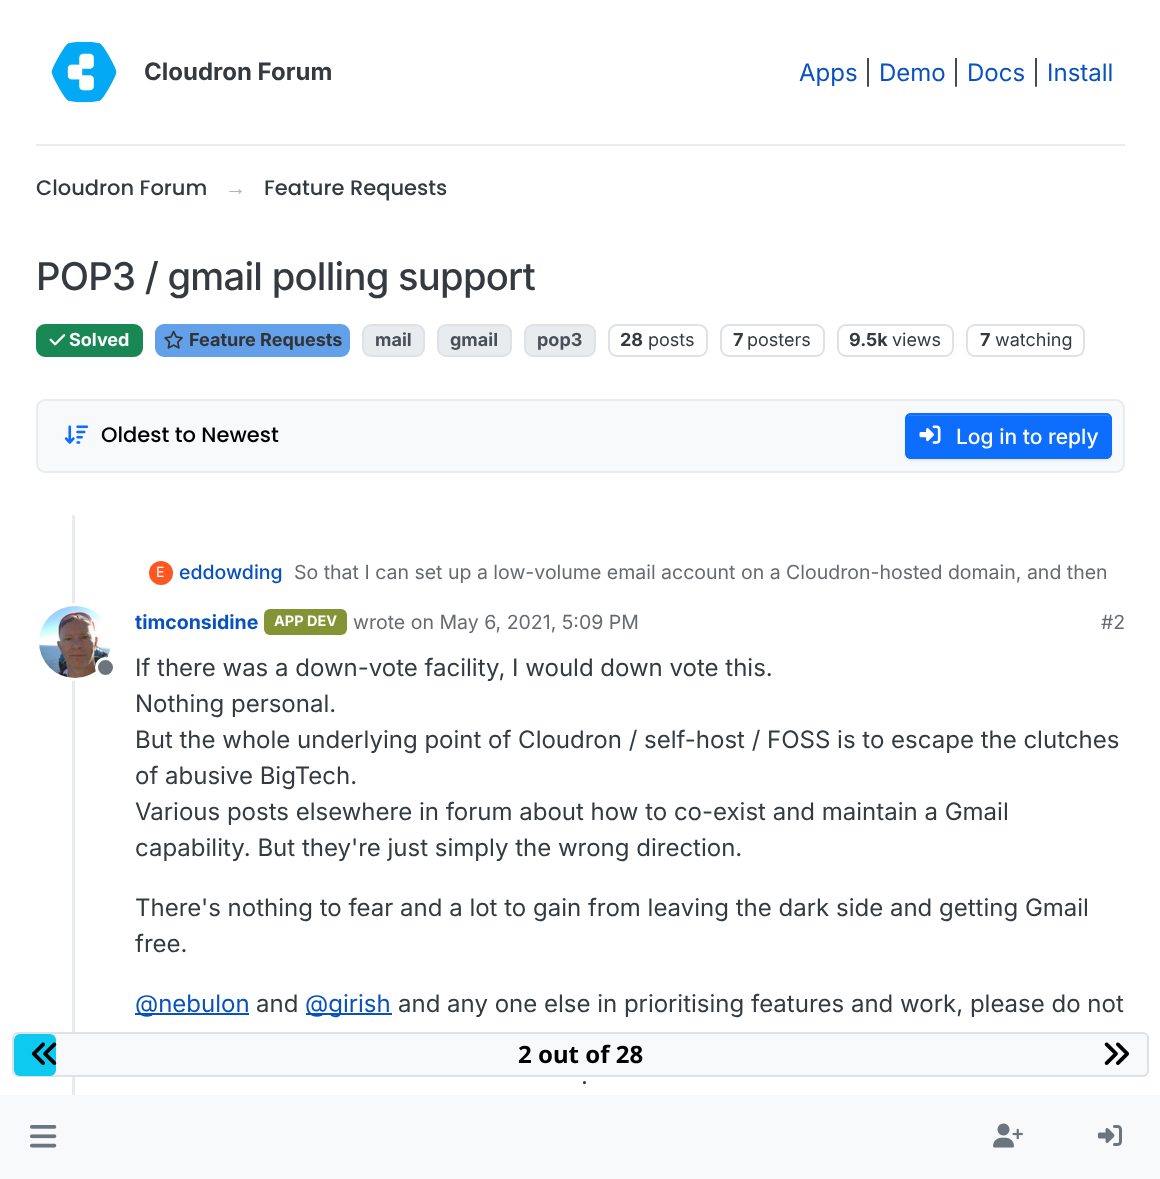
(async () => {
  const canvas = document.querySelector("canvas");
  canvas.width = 1160;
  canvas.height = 1179;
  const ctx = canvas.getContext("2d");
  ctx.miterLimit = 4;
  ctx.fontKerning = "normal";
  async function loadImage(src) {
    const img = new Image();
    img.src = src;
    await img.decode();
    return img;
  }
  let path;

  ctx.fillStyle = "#ffffff";
  ctx.fillRect(0, 0, 1160, 1179);
  ctx.fillStyle = "#e9ecef";
  ctx.fillRect(36, 144, 1089, 2);
  ctx.drawImage(await loadImage("img/1.png"), 51, 41, 66, 62);
  ctx.fillStyle = "#198754";
  ctx.beginPath();
  ctx.roundRect(37, 325, 105, 31, 8);
  ctx.fill();
  ctx.strokeStyle = "#198754";
  ctx.lineWidth = 2;
  ctx.stroke();
  ctx.drawImage(await loadImage("img/2.png"), 49, 334, 17, 12);
  ctx.fillStyle = "#62a0ea";
  ctx.beginPath();
  ctx.roundRect(156, 325, 193, 31, 8);
  ctx.fill();
  ctx.strokeStyle = "#62a0ea";
  ctx.stroke();
  ctx.drawImage(await loadImage("img/3.png"), 164, 330, 19, 19);
  ctx.fillStyle = "#e9ecef";
  ctx.beginPath();
  ctx.roundRect(363, 325, 61, 31, 8);
  ctx.fill();
  ctx.strokeStyle = "#dee2e6";
  ctx.stroke();
  ctx.beginPath();
  ctx.roundRect(438, 325, 73, 31, 8);
  ctx.fill();
  ctx.stroke();
  ctx.beginPath();
  ctx.roundRect(525, 325, 70, 31, 8);
  ctx.fill();
  ctx.stroke();
  ctx.beginPath();
  ctx.roundRect(609, 325, 98, 31, 8);
  ctx.stroke();
  ctx.beginPath();
  ctx.roundRect(721, 325, 103, 31, 8);
  ctx.stroke();
  ctx.beginPath();
  ctx.roundRect(838, 325, 115, 31, 8);
  ctx.stroke();
  ctx.beginPath();
  ctx.roundRect(967, 325, 117, 31, 8);
  ctx.stroke();
  ctx.fillStyle = "#f8f9fa";
  ctx.beginPath();
  ctx.roundRect(37, 400, 1087, 72, 8);
  ctx.fill();
  ctx.strokeStyle = "#e9ecef";
  ctx.stroke();
  ctx.drawImage(await loadImage("img/4.png"), 64, 425, 25, 19);
  ctx.fillStyle = "rgba(0, 0, 0, 0.07)";
  ctx.filter = "blur(1px)";
  ctx.beginPath();
  ctx.roundRect(905, 414, 207, 47, 6);
  ctx.fill();
  ctx.filter = "none";
  ctx.fillStyle = "#0d6efd";
  ctx.beginPath();
  ctx.roundRect(905, 413, 207, 46, 6);
  ctx.fill();
  ctx.fillStyle = "#3184fd";
  path = new Path2D("M910 416H1106C1108 416 1110 418 1110 420V419C1110 416 1108 414 1105 414H911C908 414 906 416 906 419V420C906 418 908 416 910 416Z");
  ctx.fill(path);
  ctx.beginPath();
  ctx.roundRect(906, 414, 205, 44, 5);
  ctx.strokeStyle = "#0d6efd";
  ctx.stroke();
  ctx.drawImage(await loadImage("img/5.png"), 919, 425, 22, 19);
  ctx.fillStyle = "#e9ecef";
  ctx.fillRect(72, 515, 3, 580);
  ctx.fillStyle = "#ff5722";
  ctx.beginPath();
  ctx.arc(161, 573, 12, 0, Math.PI * 2);
  ctx.fill();
  ctx.fillStyle = "#ffffff";
  ctx.beginPath();
  ctx.arc(75, 642, 37.5, 0, Math.PI * 2);
  ctx.fill();
  ctx.strokeStyle = "#ffffff";
  ctx.lineWidth = 3;
  ctx.stroke();
  ctx.drawImage(await loadImage("img/6.png"), 39, 606, 72, 72);
  ctx.fillStyle = "#6c757d";
  ctx.beginPath();
  ctx.arc(105.5, 667.5, 9, 0, Math.PI * 2);
  ctx.fill();
  ctx.stroke();
  ctx.fillStyle = "#849434";
  ctx.beginPath();
  ctx.roundRect(264, 609, 83, 26, 6);
  ctx.fill();
  ctx.fillStyle = "#0951be";
  ctx.fillRect(135, 1013, 114, 2);
  ctx.fillRect(306, 1013, 86, 2);
  ctx.fillStyle = "#f8f9fa";
  ctx.beginPath();
  ctx.roundRect(13, 1033, 1135, 43, 5);
  ctx.fill();
  ctx.strokeStyle = "#dee2e6";
  ctx.lineWidth = 2;
  ctx.stroke();
  ctx.fillStyle = "#0dcaf0";
  ctx.beginPath();
  ctx.roundRect(14, 1034, 42, 42, 6);
  ctx.fill();
  ctx.drawImage(await loadImage("img/7.png"), 31, 1042, 26, 23);
  ctx.drawImage(await loadImage("img/8.png"), 1104, 1042, 26, 23);
  ctx.fillStyle = "#f8f9fa";
  ctx.fillRect(0, 1095, 1160, 84);
  ctx.drawImage(await loadImage("img/9.png"), 30, 1125, 27, 23);
  ctx.drawImage(await loadImage("img/10.png"), 993, 1123, 30, 25);
  ctx.drawImage(await loadImage("img/11.png"), 1098, 1125, 24, 21);
  ctx.font = "bold 24px Inter";
  ctx.fillStyle = "#343a40";
  ctx.fillText("Cloudron Forum", 144, 80);
  ctx.font = "24px Inter";
  ctx.fillStyle = "#0951be";
  ctx.fillText("Apps", 799, 81);
  ctx.fillStyle = "#343a40";
  ctx.fillText("|", 864, 81);
  ctx.fillStyle = "#0951be";
  ctx.fillText("Demo", 879, 81);
  ctx.fillStyle = "#343a40";
  ctx.fillText("|", 952, 81);
  ctx.fillStyle = "#0951be";
  ctx.fillText("Docs", 967, 81);
  ctx.fillStyle = "#343a40";
  ctx.fillText("|", 1032, 81);
  ctx.fillStyle = "#0951be";
  ctx.fillText("Install", 1047, 81);
  ctx.font = "500 21px Poppins";
  ctx.fillStyle = "#343a40";
  ctx.fillText("Cloudron Forum", 36, 195);
  ctx.font = "21px Liberation Sans";
  ctx.fillStyle = "#adb5bd";
  ctx.fillText("→", 225, 195);
  ctx.font = "500 21px Poppins";
  ctx.fillStyle = "#343a40";
  ctx.fillText("Feature Requests", 264, 195);
  ctx.letterSpacing = "-0.75px";
  ctx.font = "500 38.2px Inter";
  ctx.fillText("POP3 / gmail polling support", 36, 290);
  ctx.letterSpacing = "0px";
  ctx.font = "bold 18px Inter";
  ctx.fillStyle = "#ffffff";
  ctx.fillText("Solved", 69, 346);
  ctx.fillStyle = "#333333";
  ctx.fillText("Feature Requests", 189, 346);
  ctx.fillStyle = "#495057";
  for (const [text, x, y] of [
    ["mail", 375, 346],
    ["gmail", 450, 346],
    ["pop3", 537, 346],
  ]) {
    ctx.fillText(text, x, y);
  }
  ctx.fillStyle = "#343a40";
  ctx.fillText("28", 620, 346);
  ctx.font = "18px Inter";
  ctx.fillText("posts", 648, 346);
  ctx.font = "bold 18px Inter";
  ctx.fillText("7", 733, 346);
  ctx.font = "18px Inter";
  ctx.fillText("posters", 747, 346);
  ctx.font = "bold 18px Inter";
  ctx.fillText("9.5k", 849, 346);
  ctx.font = "18px Inter";
  ctx.fillText("views", 892, 346);
  ctx.font = "bold 18px Inter";
  ctx.fillText("7", 980, 346);
  ctx.font = "18px Inter";
  ctx.fillText("watching", 995, 346);
  ctx.font = "500 21px Poppins";
  ctx.fillStyle = "#000000";
  ctx.fillText("Oldest to Newest", 101, 442);
  ctx.font = "500 21px Inter";
  ctx.fillStyle = "#ffffff";
  ctx.fillText("Log in to reply", 956, 444);
  ctx.font = "14px Inter";
  ctx.fillText("E", 156, 577);
  ctx.font = "500 19.5px Inter";
  ctx.fillStyle = "#0951be";
  ctx.fillText("eddowding", 179, 579);
  ctx.font = "19.5px Inter";
  ctx.fillStyle = "#676b70";
  ctx.fillText("So that I can set up a low-volume email account on a Cloudron-hosted domain, and then", 294, 579);
  ctx.font = "bold 19.5px Inter";
  ctx.fillStyle = "#0951be";
  ctx.fillText("timconsidine", 135, 629);
  ctx.font = "bold 14.5px Inter";
  ctx.fillStyle = "#ffffff";
  ctx.fillText("APP DEV", 274, 626);
  ctx.font = "19.5px Inter";
  ctx.fillStyle = "#676b70";
  ctx.fillText("wrote on May 6, 2021, 5:09 PM", 353, 629);
  ctx.fillText("#2", 1101, 629);
  ctx.font = "24px Inter";
  ctx.fillStyle = "#343a40";
  for (const [text, x, y] of [
    ["If there was a down-vote facility, I would down vote this.", 135, 676],
    ["Nothing personal.", 135, 712],
    ["But the whole underlying point of Cloudron / self-host / FOSS is to escape the clutches", 135, 748],
    ["of abusive BigTech.", 135, 784],
    ["Various posts elsewhere in forum about how to co-exist and maintain a Gmail", 135, 820],
    ["capability. But they're just simply the wrong direction.", 135, 856],
    ["There's nothing to fear and a lot to gain from leaving the dark side and getting Gmail", 135, 916],
    ["free.", 135, 952],
  ]) {
    ctx.fillText(text, x, y);
  }
  ctx.fillStyle = "#0951be";
  ctx.fillText("@nebulon", 135, 1012);
  ctx.fillStyle = "#343a40";
  ctx.fillText("and", 256, 1012);
  ctx.fillStyle = "#0951be";
  ctx.fillText("@girish", 305, 1012);
  ctx.fillStyle = "#343a40";
  ctx.fillText("and any one else in prioritising features and work, please do not", 398, 1012);
  ctx.fillText(".", 581, 1084);
  ctx.font = "bold 24px Noto Sans";
  ctx.fillStyle = "#000000";
  ctx.fillText("2 out of 28", 518, 1063);
})();
